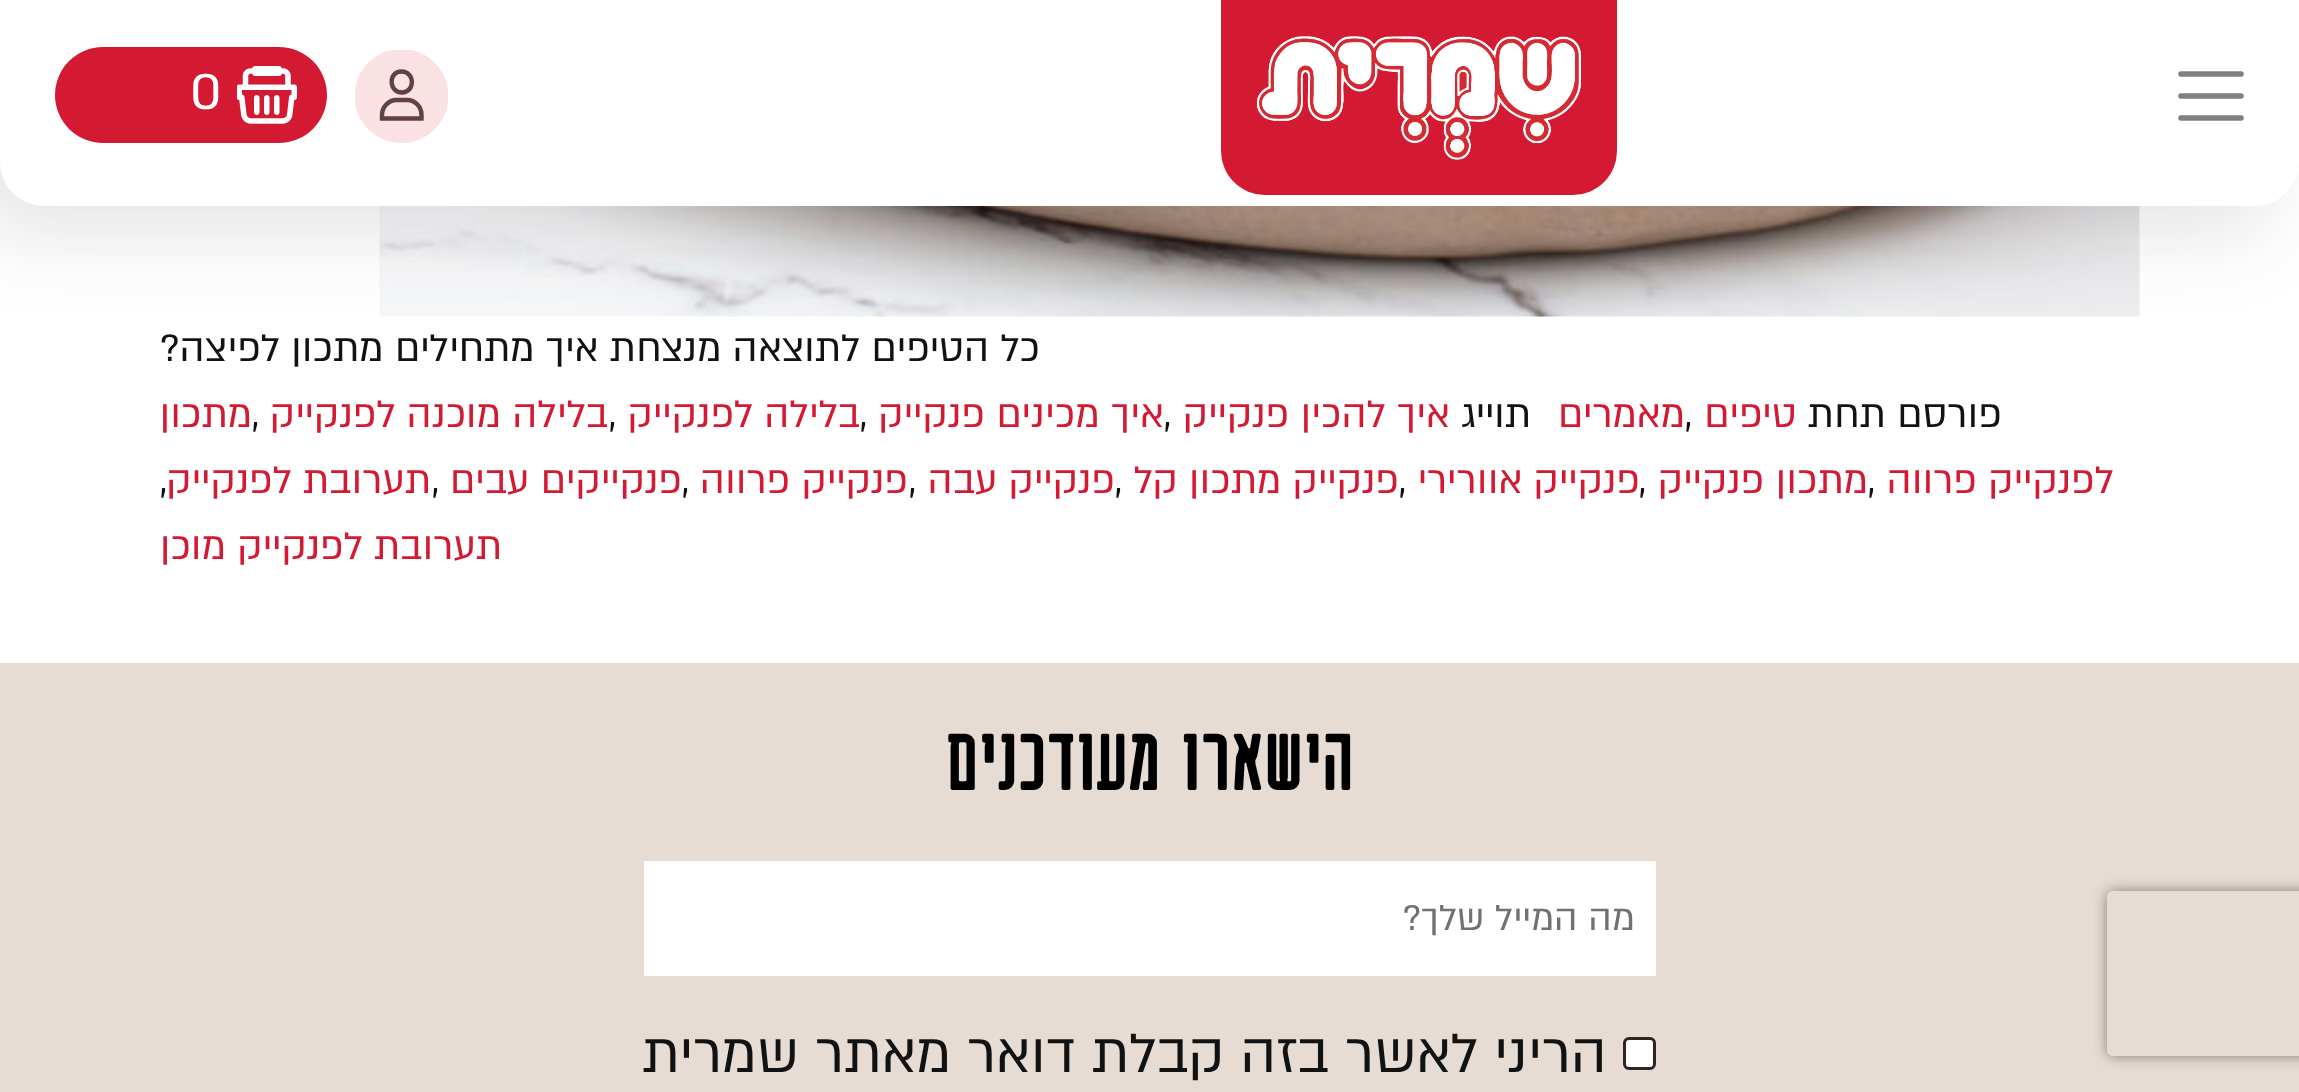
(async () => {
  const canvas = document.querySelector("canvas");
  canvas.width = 2299;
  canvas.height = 1092;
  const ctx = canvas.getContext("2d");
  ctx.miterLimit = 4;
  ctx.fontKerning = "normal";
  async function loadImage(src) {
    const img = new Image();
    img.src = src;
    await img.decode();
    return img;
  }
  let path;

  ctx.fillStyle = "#ffffff";
  ctx.fillRect(0, 0, 2299, 1092);
  ctx.fillStyle = "#e6dcd3";
  ctx.fillRect(0, 663, 2299, 429);
  ctx.save();
  path = new Path2D("M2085 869H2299V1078H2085ZM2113 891H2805C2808.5 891 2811 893.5 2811 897V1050C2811 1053.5 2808.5 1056 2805 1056H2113C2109.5 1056 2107 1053.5 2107 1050V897C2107 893.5 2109.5 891 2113 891Z");
  ctx.clip(path, "evenodd");
  ctx.fillStyle = "#808080";
  ctx.filter = "blur(7px)";
  ctx.beginPath();
  ctx.roundRect(2107, 891, 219, 165, 6);
  ctx.fill();
  ctx.filter = "none";
  ctx.restore();
  ctx.drawImage(await loadImage("img/3.png"), 379, 206, 1761, 111);
  ctx.fillStyle = "rgba(51, 34, 34, 0.12)";
  ctx.filter = "blur(41px)";
  ctx.beginPath();
  ctx.roundRect(-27, 28, 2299, 206, 44);
  ctx.fill();
  ctx.filter = "none";
  ctx.fillStyle = "#ffffff";
  ctx.beginPath();
  ctx.roundRect(0, 0, 2299, 206, [0, 0, 44, 44]);
  ctx.fill();
  path = new Path2D("M2181 74H2241M2181 96H2241M2181 118H2241");
  ctx.strokeStyle = "#808080";
  ctx.lineWidth = 5.5;
  ctx.lineCap = "round";
  ctx.stroke(path);
  ctx.fillStyle = "#d41933";
  ctx.beginPath();
  ctx.roundRect(1221, 0, 396, 195, [0, 0, 44, 44]);
  ctx.fill();
  ctx.drawImage(await loadImage("img/1.png"), 1257, 36, 324, 124);
  ctx.save();
  ctx.beginPath();
  ctx.rect(355, 50, 93, 93);
  ctx.clip();
  ctx.fillStyle = "#fae1e3";
  ctx.beginPath();
  ctx.arc(401.5, 96, 47, 0, Math.PI * 2);
  ctx.fill();
  ctx.restore();
  path = new Path2D("M421.5 118.5V115C421.5 107 415.5 100 407 100H396.5C388.5 100 382 107 382 115V118.5ZM401.5 71.5C415 71.5 415.5 92 402 92.5C388.5 92.5 388 71.5 401.5 71.5Z");
  ctx.strokeStyle = "#634141";
  ctx.lineWidth = 4.4;
  ctx.lineCap = "butt";
  ctx.stroke(path);
  ctx.beginPath();
  ctx.roundRect(55, 47, 272, 96, 48);
  ctx.fill();
  ctx.drawImage(await loadImage("img/2.png"), 237, 66, 60, 58);
  ctx.fillStyle = "#ffffff";
  ctx.fillRect(644, 861, 1012, 115);
  ctx.beginPath();
  ctx.roundRect(1624.5, 1038.5, 30, 30, 4.5);
  ctx.fill();
  ctx.strokeStyle = "#332222";
  ctx.lineWidth = 3;
  ctx.stroke();
  ctx.font = "58px 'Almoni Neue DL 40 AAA'";
  ctx.fillText("0", 190, 109);
  ctx.direction = "rtl";
  ctx.font = "44px 'Almoni Neue DL 40 AAA'";
  ctx.fillStyle = "#121212";
  ctx.fillText("כל הטיפים לתוצאה מנצחת איך מתחילים מתכון לפיצה?", 1040, 361);
  ctx.fillText("פורסם תחת", 2002, 427);
  ctx.fillStyle = "#d41933";
  ctx.fillText("טיפים", 1797, 427);
  ctx.direction = "ltr";
  ctx.fillStyle = "#121212";
  ctx.fillText(",", 1685, 427);
  ctx.direction = "rtl";
  ctx.fillStyle = "#d41933";
  ctx.fillText("מאמרים", 1685, 427);
  ctx.fillStyle = "#121212";
  ctx.fillText("תוייג", 1531, 427);
  ctx.fillStyle = "#d41933";
  ctx.fillText("איך להכין פנקייק", 1450, 427);
  ctx.direction = "ltr";
  ctx.fillStyle = "#121212";
  ctx.fillText(",", 1164, 427);
  ctx.direction = "rtl";
  ctx.fillStyle = "#d41933";
  ctx.fillText("איך מכינים פנקייק", 1164, 427);
  ctx.direction = "ltr";
  ctx.fillStyle = "#121212";
  ctx.fillText(",", 860, 427);
  ctx.direction = "rtl";
  ctx.fillStyle = "#d41933";
  ctx.fillText("בלילה לפנקייק", 860, 427);
  ctx.direction = "ltr";
  ctx.fillStyle = "#121212";
  ctx.fillText(",", 609, 427);
  ctx.direction = "rtl";
  ctx.fillStyle = "#d41933";
  ctx.fillText("בלילה מוכנה לפנקייק", 608, 427);
  ctx.direction = "ltr";
  ctx.fillStyle = "#121212";
  ctx.fillText(",", 252, 427);
  ctx.direction = "rtl";
  ctx.fillStyle = "#d41933";
  ctx.fillText("מתכון", 252, 427);
  ctx.fillText("לפנקייק פרווה", 2114, 493);
  ctx.direction = "ltr";
  ctx.fillStyle = "#121212";
  ctx.fillText(",", 1868, 493);
  ctx.direction = "rtl";
  ctx.fillStyle = "#d41933";
  ctx.fillText("מתכון פנקייק", 1868, 493);
  ctx.direction = "ltr";
  ctx.fillStyle = "#121212";
  ctx.fillText(",", 1639, 493);
  ctx.direction = "rtl";
  ctx.fillStyle = "#d41933";
  ctx.fillText("פנקייק אוורירי", 1640, 493);
  ctx.direction = "ltr";
  ctx.fillStyle = "#121212";
  ctx.fillText(",", 1399, 493);
  ctx.direction = "rtl";
  ctx.fillStyle = "#d41933";
  ctx.fillText("פנקייק מתכון קל", 1399, 493);
  ctx.direction = "ltr";
  ctx.fillStyle = "#121212";
  ctx.fillText(",", 1115, 493);
  ctx.direction = "rtl";
  ctx.fillStyle = "#d41933";
  ctx.fillText("פנקייק עבה", 1115, 493);
  ctx.direction = "ltr";
  ctx.fillStyle = "#121212";
  ctx.fillText(",", 909, 493);
  ctx.direction = "rtl";
  ctx.fillStyle = "#d41933";
  ctx.fillText("פנקייק פרווה", 908, 493);
  ctx.direction = "ltr";
  ctx.fillStyle = "#121212";
  ctx.fillText(",", 682, 493);
  ctx.direction = "rtl";
  ctx.fillStyle = "#d41933";
  ctx.fillText("פנקייקים עבים", 682, 493);
  ctx.direction = "ltr";
  ctx.fillStyle = "#121212";
  ctx.fillText(",", 432, 493);
  ctx.direction = "rtl";
  ctx.fillStyle = "#d41933";
  ctx.fillText("תערובת לפנקייק", 431, 493);
  ctx.direction = "ltr";
  ctx.fillStyle = "#121212";
  ctx.fillText(",", 160, 493);
  ctx.direction = "rtl";
  ctx.fillStyle = "#d41933";
  ctx.fillText("תערובת לפנקייק מוכן", 502, 559);
  ctx.font = "96.25px 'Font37'";
  ctx.fillStyle = "#000000";
  ctx.fillText("הישארו מעודכנים", 1354, 790);
  ctx.font = "41.25px 'Almoni Neue DL 40 AAA'";
  ctx.fillStyle = "#717171";
  ctx.fillText("מה המייל שלך?", 1635, 930);
  ctx.font = "63.25px 'Almoni Neue DL 40 AAA'";
  ctx.fillStyle = "#121212";
  ctx.fillText("הריני לאשר בזה קבלת דואר מאתר שמרית", 1607, 1072);
})();
